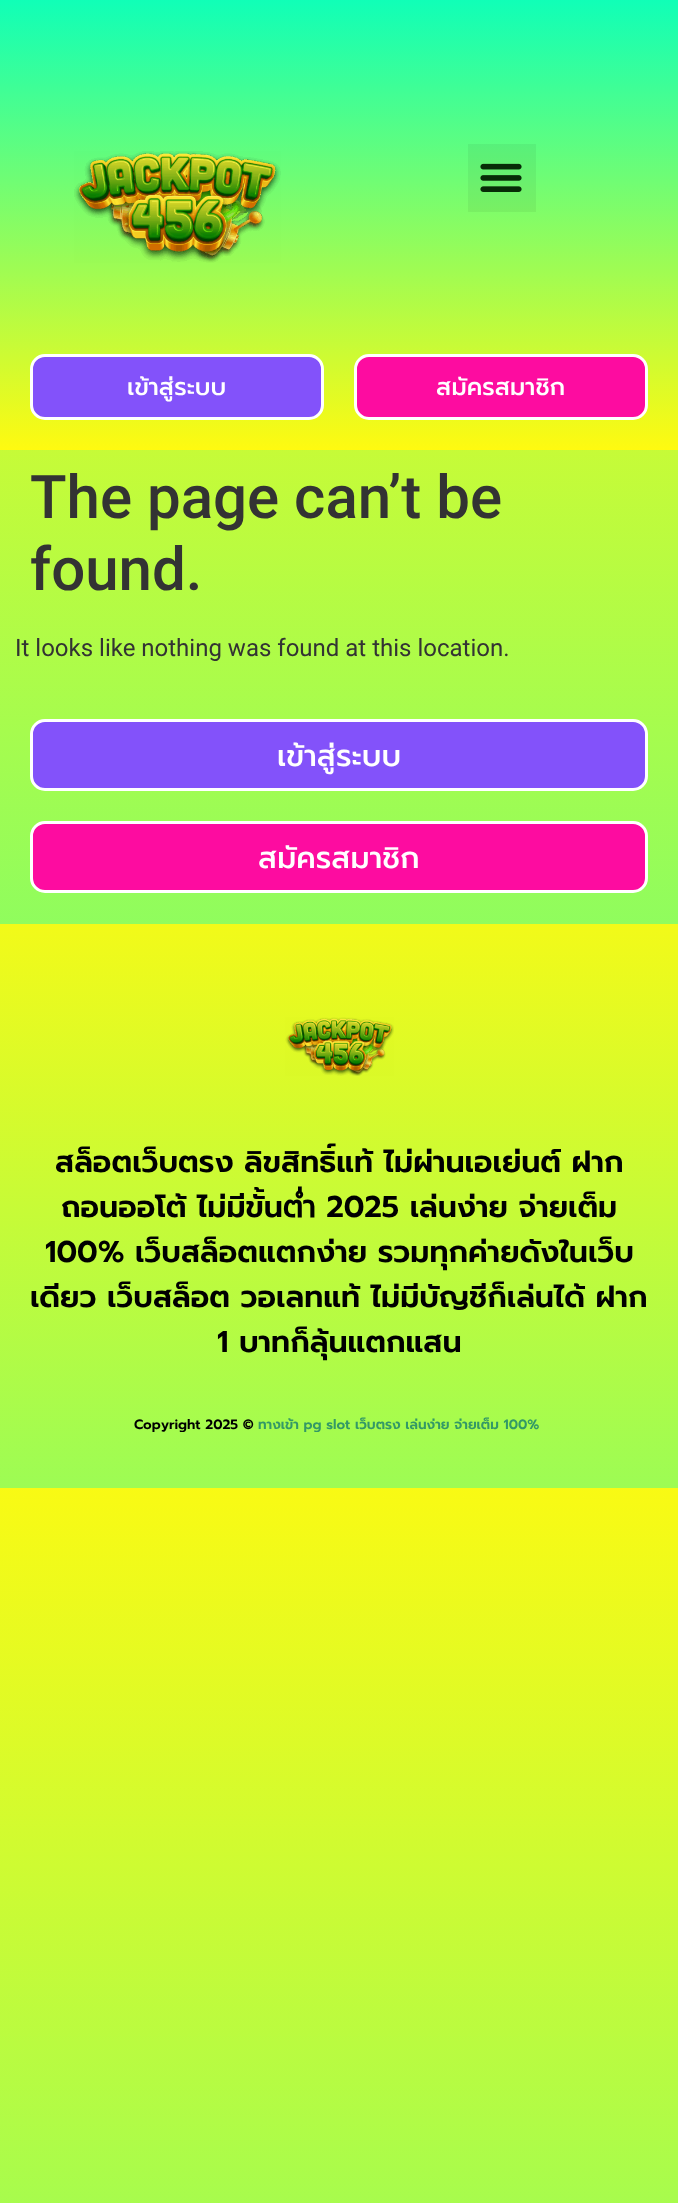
(async () => {
  const canvas = document.querySelector("canvas");
  canvas.width = 678;
  canvas.height = 2203;
  const ctx = canvas.getContext("2d");
  ctx.miterLimit = 4;
  ctx.fontKerning = "normal";
  async function loadImage(src) {
    const img = new Image();
    img.src = src;
    await img.decode();
    return img;
  }
  let gradient;

  ctx.fillStyle = "#ffffff";
  ctx.fillRect(0, 0, 678, 2203);
  gradient = ctx.createLinearGradient(339, 0, 339, 1488);
  gradient.addColorStop(0, "#f9fa14");
  gradient.addColorStop(1, "#50fe8a");
  ctx.fillStyle = gradient;
  ctx.fillRect(0, 450, 678, 474);
  gradient = ctx.createLinearGradient(339, 1488, 339, 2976);
  gradient.addColorStop(0, "#f9fa14");
  gradient.addColorStop(1, "#50fe8a");
  ctx.fillStyle = gradient;
  ctx.fillRect(0, 1488, 678, 715);
  gradient = ctx.createLinearGradient(339, 0, 339, 450);
  gradient.addColorStop(0, "#10ffb7");
  gradient.addColorStop(1, "#fffa10");
  ctx.fillStyle = gradient;
  ctx.fillRect(0, 0, 678, 450);
  ctx.drawImage(await loadImage("img/1.png"), 74, 151, 207, 112);
  ctx.fillStyle = "rgba(0, 0, 0, 0.05)";
  ctx.fillRect(468, 144, 68, 68);
  ctx.drawImage(await loadImage("img/2.png"), 480, 163, 42, 29);
  ctx.fillStyle = "#8352fa";
  ctx.beginPath();
  ctx.roundRect(31.5, 355.5, 291, 63, 13.5);
  ctx.fill();
  ctx.strokeStyle = "#ffffff";
  ctx.lineWidth = 3;
  ctx.stroke();
  ctx.fillStyle = "#fd0ca0";
  ctx.beginPath();
  ctx.roundRect(355.5, 355.5, 291, 63, 13.5);
  ctx.fill();
  ctx.stroke();
  ctx.fillStyle = "#8352fa";
  ctx.beginPath();
  ctx.roundRect(31.5, 720.5, 615, 69, 13.5);
  ctx.fill();
  ctx.stroke();
  ctx.fillStyle = "#fd0ca0";
  ctx.beginPath();
  ctx.roundRect(31.5, 822.5, 615, 69, 13.5);
  ctx.fill();
  ctx.stroke();
  gradient = ctx.createLinearGradient(339, 924, 339, 1488);
  gradient.addColorStop(0, "#f2fa19");
  gradient.addColorStop(1, "#9dfc54");
  ctx.fillStyle = gradient;
  ctx.fillRect(0, 924, 678, 564);
  ctx.drawImage(await loadImage("img/3.png"), 285, 1017, 109, 59);
  ctx.font = "500 24px Prompt";
  ctx.fillStyle = "#ffffff";
  ctx.fillText("เข้าสู่ระบบ", 127, 395);
  ctx.fillText("สมัครสมาชิก", 436, 395);
  ctx.font = "500 60px Roboto";
  ctx.fillStyle = "#333333";
  ctx.fillText("The page can’t be", 30, 518);
  ctx.fillText("found.", 30, 590);
  ctx.font = "24px Roboto";
  ctx.fillText("It looks like nothing was found at this location.", 15, 656);
  ctx.font = "500 30px Prompt";
  ctx.fillStyle = "#ffffff";
  ctx.fillText("เข้าสู่ระบบ", 277, 766);
  ctx.fillText("สมัครสมาชิก", 258, 868);
  ctx.font = "600 30px Prompt";
  ctx.fillStyle = "#000000";
  for (const [text, x, y] of [
    ["สล็อตเว็บตรง ลิขสิทธิ์แท้ ไม่ผ่านเอเย่นต์ ฝาก", 55, 1172],
    ["ถอนออโต้ ไม่มีขั้นต่ำ 2025 เล่นง่าย จ่ายเต็ม", 61, 1217],
    ["100% เว็บสล็อตแตกง่าย รวมทุกค่ายดังในเว็บ", 45, 1262],
    ["เดียว เว็บสล็อต วอเลทแท้ ไม่มีบัญชีก็เล่นได้ ฝาก", 30, 1307],
    ["1 บาทก็ลุ้นแตกแสน", 217, 1352],
  ]) {
    ctx.fillText(text, x, y);
  }
  ctx.font = "600 13.5px Prompt";
  ctx.fillText("Copyright 2025 ©", 134, 1429);
  ctx.fillStyle = "#339966";
  ctx.fillText("ทางเข้า pg slot เว็บตรง เล่นง่าย จ่ายเต็ม 100%", 258, 1429);
})();
